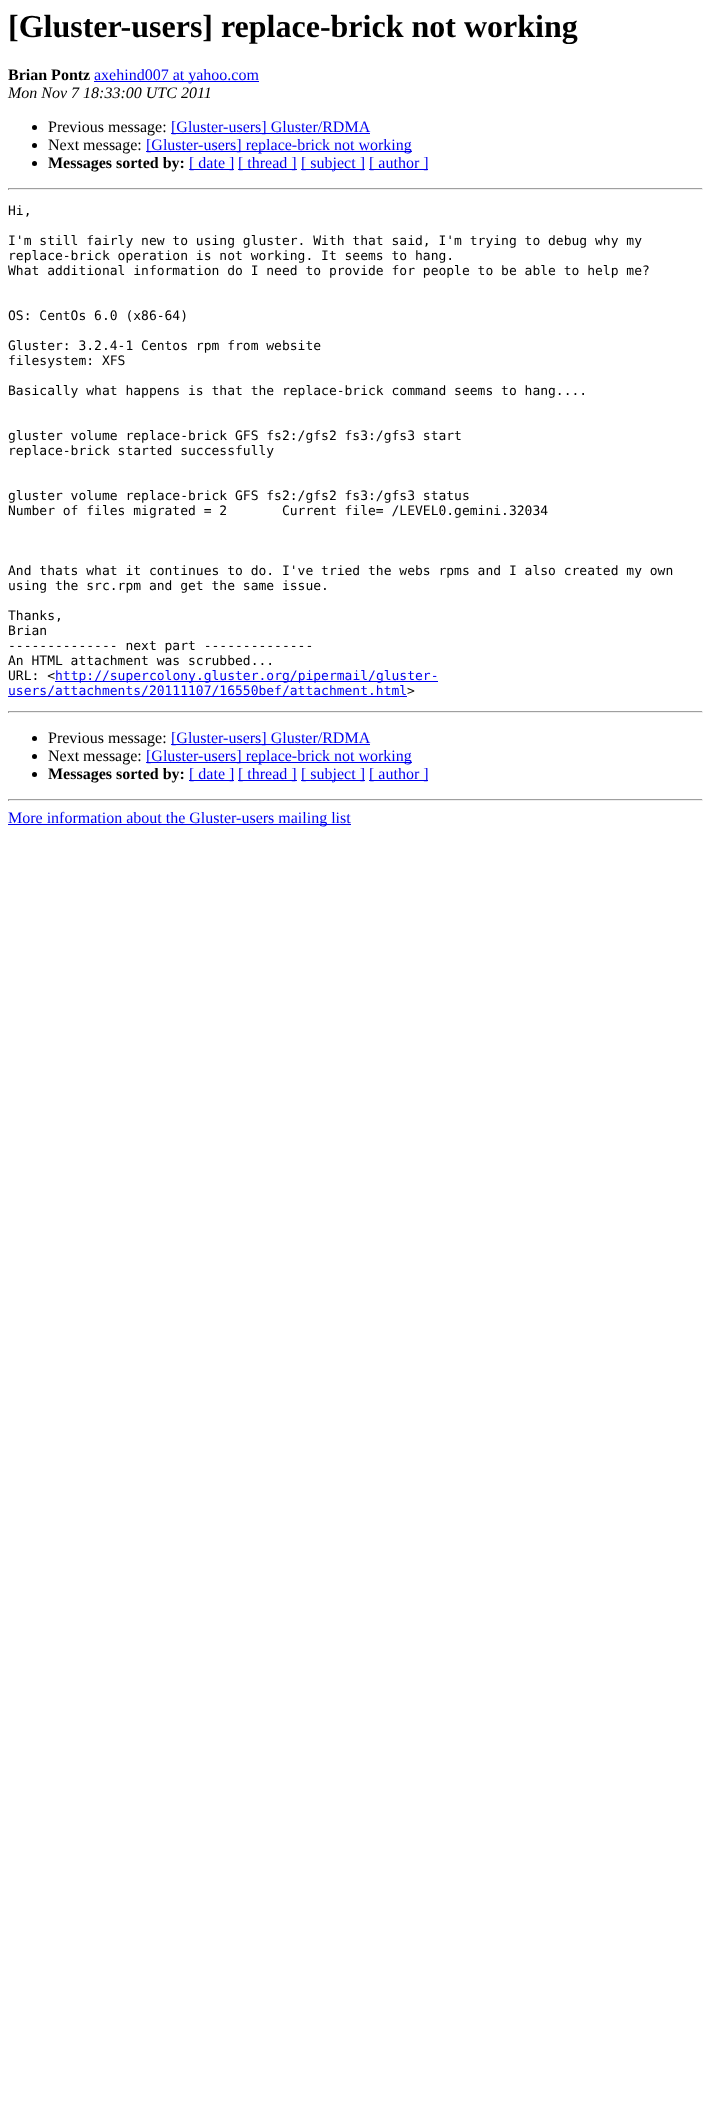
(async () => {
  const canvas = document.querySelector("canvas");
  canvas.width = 711;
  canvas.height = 2105;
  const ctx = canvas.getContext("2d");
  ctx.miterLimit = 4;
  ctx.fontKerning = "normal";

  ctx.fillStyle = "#ffffff";
  ctx.fillRect(0, 0, 711, 2105);
  ctx.fillStyle = "#0000ee";
  ctx.fillRect(94, 81, 165, 1);
  ctx.fillStyle = "#000000";
  ctx.beginPath();
  ctx.arc(34.5, 127.5, 2.5, 0, Math.PI * 2);
  ctx.fill();
  ctx.fillStyle = "#0000ee";
  ctx.fillRect(171, 133, 199, 1);
  ctx.fillStyle = "#000000";
  ctx.beginPath();
  ctx.arc(34.5, 145.5, 2.5, 0, Math.PI * 2);
  ctx.fill();
  ctx.fillStyle = "#0000ee";
  ctx.fillRect(146, 151, 266, 1);
  ctx.fillStyle = "#000000";
  ctx.beginPath();
  ctx.arc(34.5, 163.5, 2.5, 0, Math.PI * 2);
  ctx.fill();
  for (const [x, y, w, h, color] of [
    [189, 169, 45, 1, "#0000ee"],
    [238, 169, 59, 1, "#0000ee"],
    [301, 169, 64, 1, "#0000ee"],
    [369, 169, 59, 1, "#0000ee"],
    [8, 188, 695, 1, "#9f9f9f"],
    [702, 188, 1, 2, "#eeeeee"],
    [8, 189, 695, 1, "#eeeeee"],
    [8, 188, 1, 2, "#9f9f9f"],
    [55, 681, 383, 1, "#0000ee"],
    [8, 696, 399, 1, "#0000ee"],
    [8, 711, 695, 1, "#9f9f9f"],
    [702, 711, 1, 2, "#eeeeee"],
    [8, 712, 695, 1, "#eeeeee"],
    [8, 711, 1, 2, "#9f9f9f"],
  ]) {
    ctx.fillStyle = color;
    ctx.fillRect(x, y, w, h);
  }
  ctx.fillStyle = "#000000";
  ctx.beginPath();
  ctx.arc(34.5, 738.5, 2.5, 0, Math.PI * 2);
  ctx.fill();
  ctx.fillStyle = "#0000ee";
  ctx.fillRect(171, 744, 199, 1);
  ctx.fillStyle = "#000000";
  ctx.beginPath();
  ctx.arc(34.5, 756.5, 2.5, 0, Math.PI * 2);
  ctx.fill();
  ctx.fillStyle = "#0000ee";
  ctx.fillRect(146, 762, 266, 1);
  ctx.fillStyle = "#000000";
  ctx.beginPath();
  ctx.arc(34.5, 774.5, 2.5, 0, Math.PI * 2);
  ctx.fill();
  for (const [x, y, w, h, color] of [
    [189, 780, 45, 1, "#0000ee"],
    [238, 780, 59, 1, "#0000ee"],
    [301, 780, 64, 1, "#0000ee"],
    [369, 780, 59, 1, "#0000ee"],
    [8, 799, 695, 1, "#9f9f9f"],
    [702, 799, 1, 2, "#eeeeee"],
    [8, 800, 695, 1, "#eeeeee"],
    [8, 799, 1, 2, "#9f9f9f"],
    [8, 824, 343, 1, "#0000ee"],
  ]) {
    ctx.fillStyle = color;
    ctx.fillRect(x, y, w, h);
  }
  ctx.font = "bold 32px Liberation Serif";
  ctx.fillStyle = "#000000";
  ctx.fillText("[Gluster-users] replace-brick not working", 8, 37);
  ctx.font = "bold 16px Liberation Serif";
  ctx.fillText("Brian Pontz", 8, 80);
  ctx.font = "16px Liberation Serif";
  ctx.fillStyle = "#0000ee";
  ctx.fillText("axehind007 at yahoo.com", 94, 80);
  ctx.font = "italic 16px Liberation Serif";
  ctx.fillStyle = "#000000";
  ctx.fillText("Mon Nov 7 18:33:00 UTC 2011", 8, 98);
  ctx.font = "16px Liberation Serif";
  ctx.fillText("Previous message:", 48, 132);
  ctx.fillStyle = "#0000ee";
  ctx.fillText("[Gluster-users] Gluster/RDMA", 171, 132);
  ctx.fillStyle = "#000000";
  ctx.fillText("Next message:", 48, 150);
  ctx.fillStyle = "#0000ee";
  ctx.fillText("[Gluster-users] replace-brick not working", 146, 150);
  ctx.font = "bold 16px Liberation Serif";
  ctx.fillStyle = "#000000";
  ctx.fillText("Messages sorted by:", 48, 168);
  ctx.font = "16px Liberation Serif";
  ctx.fillStyle = "#0000ee";
  for (const [text, x, y] of [
    ["[ date ]", 189, 168],
    ["[ thread ]", 238, 168],
    ["[ subject ]", 301, 168],
    ["[ author ]", 369, 168],
  ]) {
    ctx.fillText(text, x, y);
  }
  ctx.font = "13px DejaVu Sans Mono";
  ctx.fillStyle = "#000000";
  for (const [text, x, y] of [
    ["Hi,", 8, 215],
    ["I'm still fairly new to using gluster. With that said, I'm trying to debug why my", 8, 245],
    ["replace-brick operation is not working. It seems to hang.", 8, 260],
    ["What additional information do I need to provide for people to be able to help me?", 8, 275],
    ["OS: CentOs 6.0 (x86-64)", 8, 320],
    ["Gluster: 3.2.4-1 Centos rpm from website", 8, 350],
    ["filesystem: XFS", 8, 365],
    ["Basically what happens is that the replace-brick command seems to hang....", 8, 395],
    ["gluster volume replace-brick GFS fs2:/gfs2 fs3:/gfs3 start", 8, 440],
    ["replace-brick started successfully", 8, 455],
    ["gluster volume replace-brick GFS fs2:/gfs2 fs3:/gfs3 status", 8, 500],
    ["Number of files migrated = 2       Current file= /LEVEL0.gemini.32034", 8, 515],
    ["And thats what it continues to do. I've tried the webs rpms and I also created my own", 8, 575],
    ["using the src.rpm and get the same issue.", 8, 590],
    ["Thanks,", 8, 620],
    ["Brian", 8, 635],
    ["-------------- next part --------------", 8, 650],
    ["An HTML attachment was scrubbed...", 8, 665],
    ["URL: <", 8, 680],
  ]) {
    ctx.fillText(text, x, y);
  }
  ctx.fillStyle = "#0000ee";
  ctx.fillText("http://supercolony.gluster.org/pipermail/gluster-", 55, 680);
  ctx.fillText("users/attachments/20111107/16550bef/attachment.html", 8, 695);
  ctx.fillStyle = "#000000";
  ctx.fillText(">", 407, 695);
  ctx.font = "16px Liberation Serif";
  ctx.fillText("Previous message:", 48, 743);
  ctx.fillStyle = "#0000ee";
  ctx.fillText("[Gluster-users] Gluster/RDMA", 171, 743);
  ctx.fillStyle = "#000000";
  ctx.fillText("Next message:", 48, 761);
  ctx.fillStyle = "#0000ee";
  ctx.fillText("[Gluster-users] replace-brick not working", 146, 761);
  ctx.font = "bold 16px Liberation Serif";
  ctx.fillStyle = "#000000";
  ctx.fillText("Messages sorted by:", 48, 779);
  ctx.font = "16px Liberation Serif";
  ctx.fillStyle = "#0000ee";
  for (const [text, x, y] of [
    ["[ date ]", 189, 779],
    ["[ thread ]", 238, 779],
    ["[ subject ]", 301, 779],
    ["[ author ]", 369, 779],
    ["More information about the Gluster-users mailing list", 8, 823],
  ]) {
    ctx.fillText(text, x, y);
  }
})();
